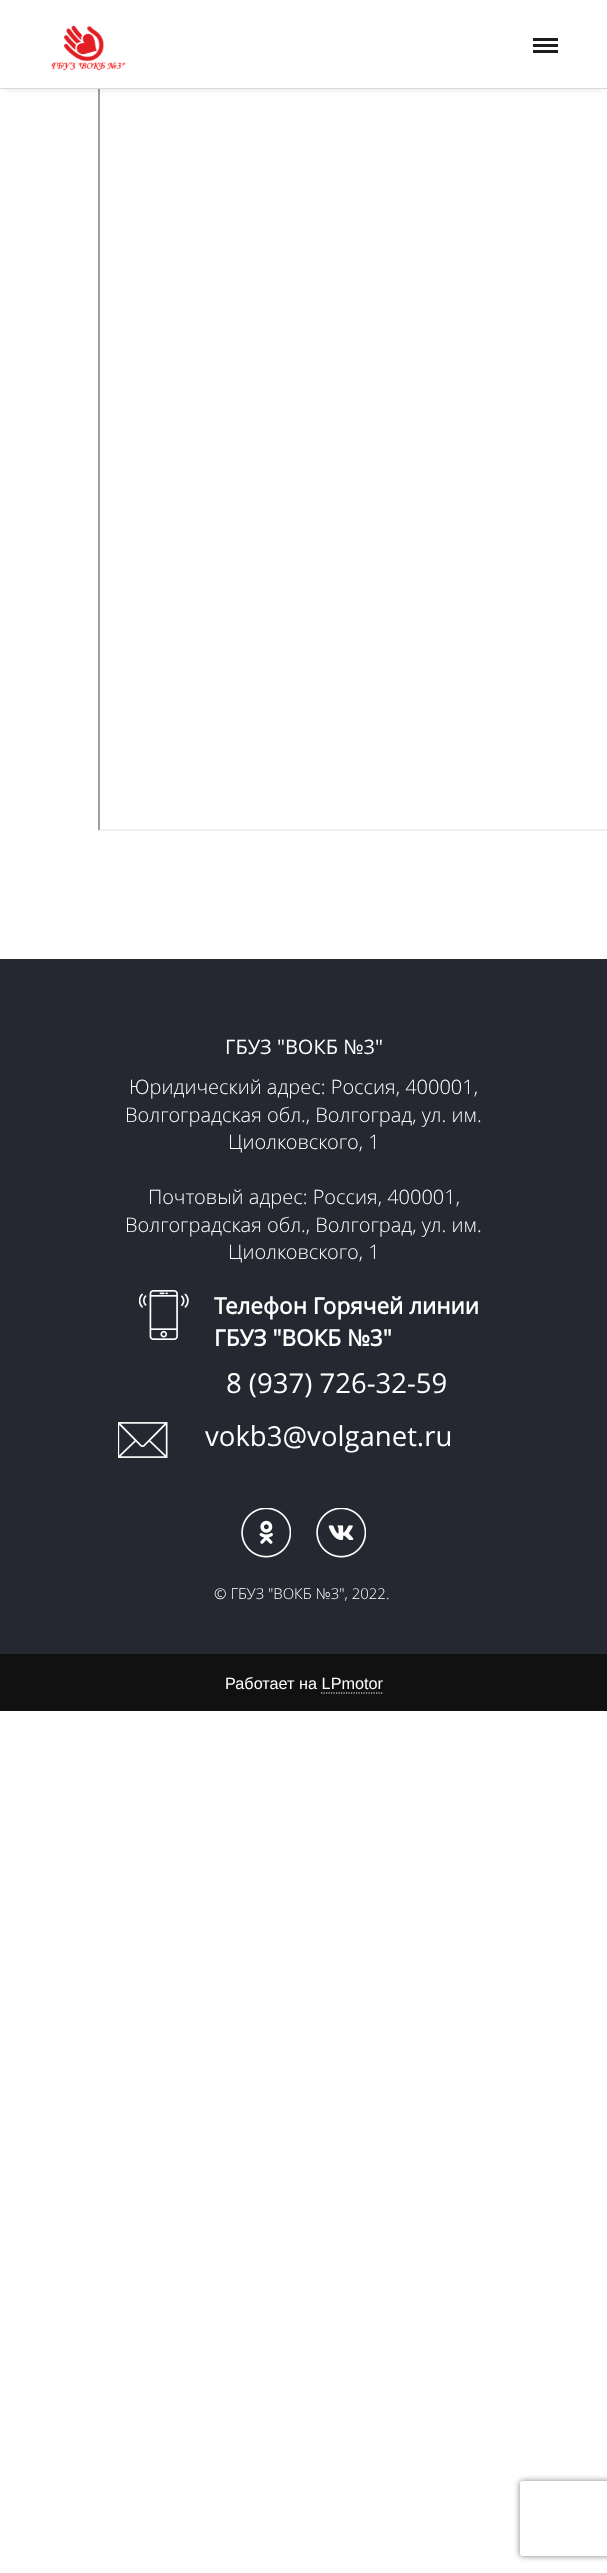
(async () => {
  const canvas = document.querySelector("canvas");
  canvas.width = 607;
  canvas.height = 2573;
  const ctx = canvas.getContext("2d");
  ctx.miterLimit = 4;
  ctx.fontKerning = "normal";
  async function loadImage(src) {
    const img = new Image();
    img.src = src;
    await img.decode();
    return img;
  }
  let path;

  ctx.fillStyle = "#ffffff";
  ctx.fillRect(0, 0, 607, 2573);
  ctx.fillStyle = "#eeeeee";
  path = new Path2D("M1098 831H98L100 829H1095Z");
  ctx.fill(path);
  ctx.fillStyle = "#9f9f9f";
  path = new Path2D("M98 831V-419L100-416V829Z");
  ctx.fill(path);
  ctx.fillStyle = "rgba(0, 0, 0, 0.07)";
  ctx.filter = "blur(2.5px)";
  ctx.beginPath();
  ctx.rect(5, 13, 598, 78);
  ctx.fill();
  ctx.filter = "none";
  ctx.fillStyle = "#ffffff";
  ctx.fillRect(2, 0, 604, 88);
  ctx.fillStyle = "#d9d9d9";
  ctx.fillRect(0, 88, 607, 1);
  ctx.drawImage(await loadImage("img/1.png"), 51, 25, 75, 46);
  for (const [x, y, w, h, color] of [
    [533, 38, 25, 3, "#1d1d1d"],
    [533, 44, 25, 3, "#1d1d1d"],
    [533, 50, 25, 3, "#1d1d1d"],
    [0, 959, 607, 695, "#252830"],
  ]) {
    ctx.fillStyle = color;
    ctx.fillRect(x, y, w, h);
  }
  ctx.drawImage(await loadImage("img/2.png"), 139, 1290, 50, 50);
  ctx.drawImage(await loadImage("img/3.png"), 118, 1422, 50, 36);
  ctx.drawImage(await loadImage("img/4.png"), 241, 1508, 50, 50);
  ctx.drawImage(await loadImage("img/5.png"), 316, 1508, 50, 50);
  ctx.fillStyle = "#111111";
  ctx.fillRect(0, 1654, 607, 57);
  path = new Path2D("M321 1693H382.5");
  ctx.strokeStyle = "#ffffff";
  ctx.lineWidth = 1.2;
  ctx.setLineDash([1.25, 1.25]);
  ctx.stroke(path);
  ctx.save();
  path = new Path2D("M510 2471H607V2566H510ZM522.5 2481H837.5C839 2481 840 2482 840 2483.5V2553.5C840 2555 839 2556 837.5 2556H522.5C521 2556 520 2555 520 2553.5V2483.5C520 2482 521 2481 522.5 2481Z");
  ctx.clip(path, "evenodd");
  ctx.fillStyle = "#808080";
  ctx.filter = "blur(3px)";
  ctx.beginPath();
  ctx.roundRect(520, 2481, 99, 75, 2.5);
  ctx.fill();
  ctx.filter = "none";
  ctx.restore();
  ctx.font = "20px Open Sans";
  ctx.fillStyle = "#ffffff";
  ctx.fillText("ГБУЗ \"ВОКБ №3\"", 225, 1054);
  ctx.font = "300 20px Open Sans";
  for (const [text, x, y] of [
    ["Юридический адрес: Россия, 400001,", 129, 1094],
    ["Волгоградская обл., Волгоград, ул. им.", 125, 1122],
    ["Циолковского, 1", 228, 1149],
    ["Почтовый адрес: Россия, 400001,", 148, 1204],
    ["Волгоградская обл., Волгоград, ул. им.", 125, 1232],
    ["Циолковского, 1", 228, 1259],
  ]) {
    ctx.fillText(text, x, y);
  }
  ctx.font = "bold 22.5px Open Sans";
  ctx.fillText("Телефон Горячей линии", 214, 1314);
  ctx.fillText("ГБУЗ \"ВОКБ №3\"", 214, 1346);
  ctx.font = "27.5px Open Sans";
  ctx.fillText("8 (937) 726-32-59", 226, 1393);
  ctx.fillText("vokb3@volganet.ru", 205, 1446);
  ctx.font = "300 15px Open Sans";
  ctx.fillText("© ГБУЗ \"ВОКБ №3\", 2022.", 214, 1599);
  ctx.font = "16.25px Liberation Sans";
  ctx.fillText("Работает на LPmotor", 225, 1689);
})();
